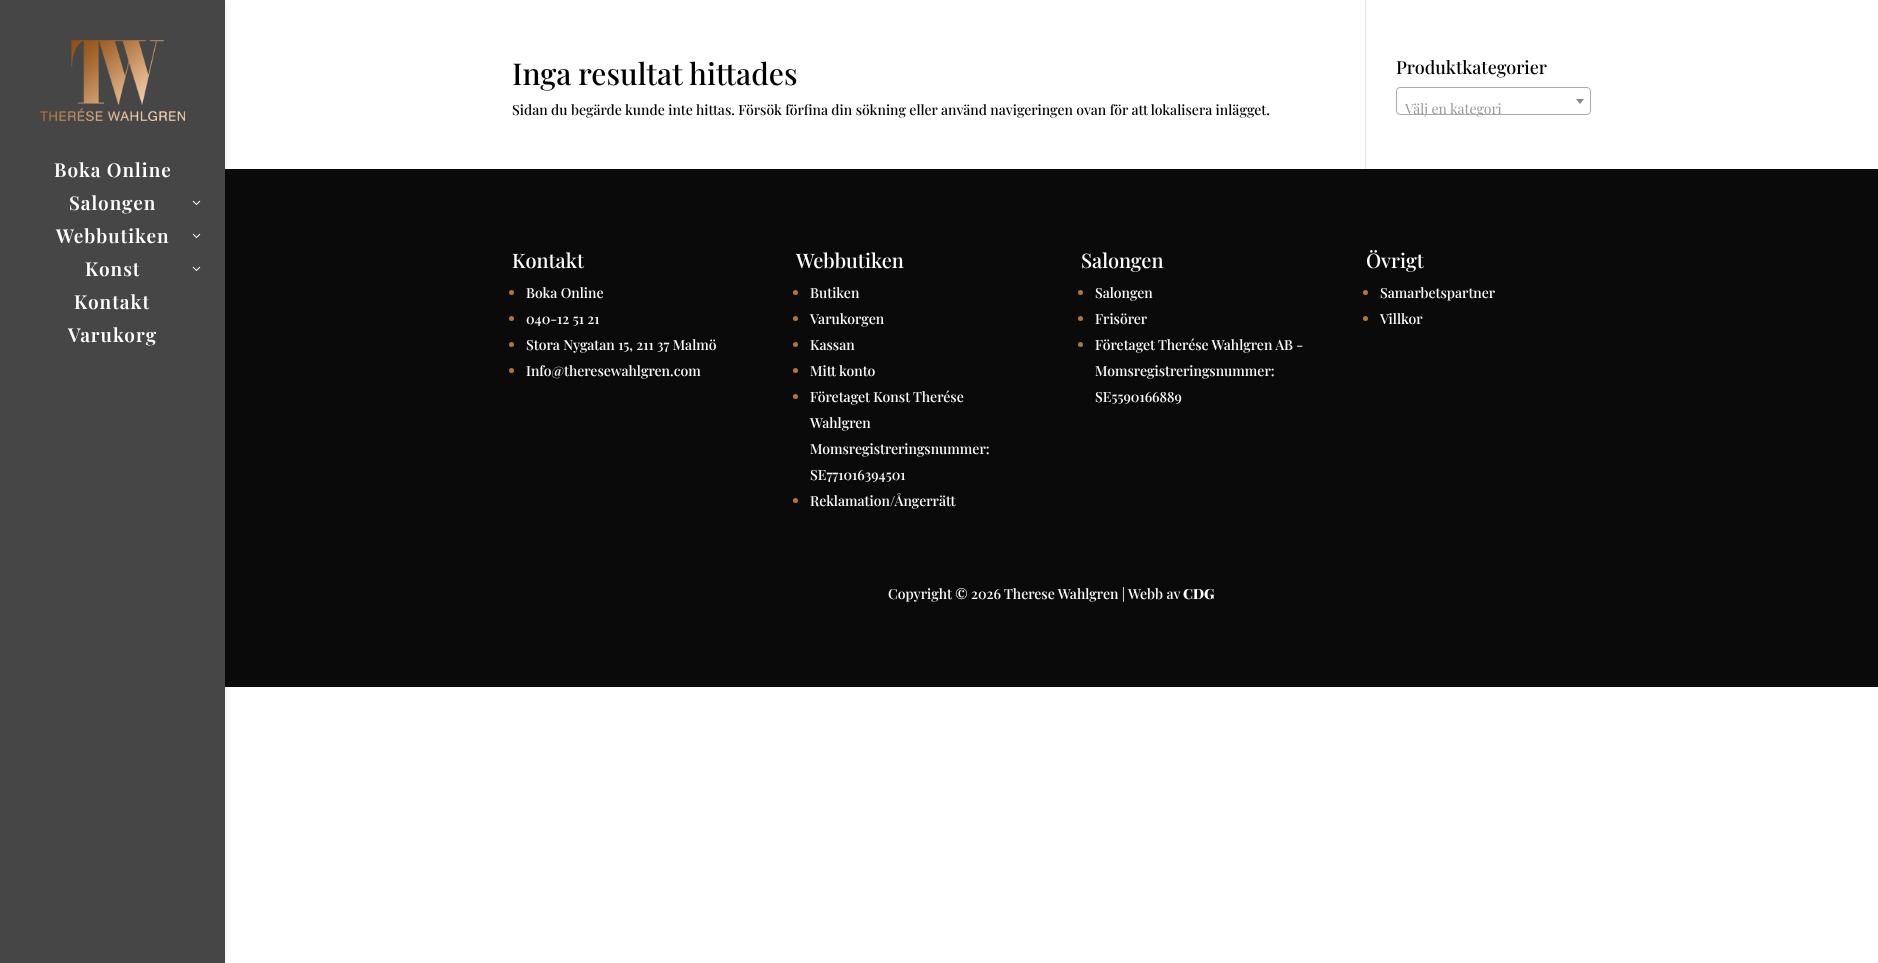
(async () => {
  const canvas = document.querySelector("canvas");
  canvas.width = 1878;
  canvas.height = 963;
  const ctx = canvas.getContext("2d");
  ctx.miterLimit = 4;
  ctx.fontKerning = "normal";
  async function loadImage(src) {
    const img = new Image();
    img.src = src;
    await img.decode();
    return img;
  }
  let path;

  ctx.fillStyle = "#ffffff";
  ctx.fillRect(0, 0, 1878, 963);
  ctx.fillStyle = "#0a0a0a";
  ctx.fillRect(225, 169, 1653, 518);
  ctx.fillStyle = "rgba(0, 0, 0, 0.1)";
  ctx.filter = "blur(3.5px)";
  ctx.beginPath();
  ctx.rect(0, 0, 225, 963);
  ctx.fill();
  ctx.filter = "none";
  ctx.fillStyle = "#464646";
  ctx.fillRect(0, 0, 225, 963);
  ctx.drawImage(await loadImage("img/1.png"), 40, 40, 145, 81);
  ctx.drawImage(await loadImage("img/2.png"), 192, 200, 9, 5);
  ctx.drawImage(await loadImage("img/2.png"), 192, 233, 9, 5);
  ctx.drawImage(await loadImage("img/2.png"), 192, 266, 9, 5);
  ctx.fillStyle = "#e2e2e2";
  ctx.fillRect(1365, 0, 1, 169);
  ctx.beginPath();
  ctx.roundRect(1396.5, 87.5, 194, 27, 3.5);
  ctx.strokeStyle = "#aaaaaa";
  ctx.stroke();
  ctx.fillStyle = "#888888";
  path = new Path2D("M1576 99H1584L1580 104Z");
  ctx.fill(path);
  ctx.fillStyle = "#b87333";
  ctx.beginPath();
  ctx.arc(511.5, 292.5, 2.5, 0, Math.PI * 2);
  ctx.fill();
  ctx.beginPath();
  ctx.arc(511.5, 318.5, 2.5, 0, Math.PI * 2);
  ctx.fill();
  ctx.beginPath();
  ctx.arc(511.5, 344.5, 2.5, 0, Math.PI * 2);
  ctx.fill();
  ctx.beginPath();
  ctx.arc(511.5, 370.5, 2.5, 0, Math.PI * 2);
  ctx.fill();
  ctx.beginPath();
  ctx.arc(795.5, 292.5, 2.5, 0, Math.PI * 2);
  ctx.fill();
  ctx.beginPath();
  ctx.arc(795.5, 318.5, 2.5, 0, Math.PI * 2);
  ctx.fill();
  ctx.beginPath();
  ctx.arc(795.5, 344.5, 2.5, 0, Math.PI * 2);
  ctx.fill();
  ctx.beginPath();
  ctx.arc(795.5, 370.5, 2.5, 0, Math.PI * 2);
  ctx.fill();
  ctx.beginPath();
  ctx.arc(795.5, 396.5, 2.5, 0, Math.PI * 2);
  ctx.fill();
  ctx.beginPath();
  ctx.arc(795.5, 500.5, 2.5, 0, Math.PI * 2);
  ctx.fill();
  ctx.beginPath();
  ctx.arc(1080.5, 292.5, 2.5, 0, Math.PI * 2);
  ctx.fill();
  ctx.beginPath();
  ctx.arc(1080.5, 318.5, 2.5, 0, Math.PI * 2);
  ctx.fill();
  ctx.beginPath();
  ctx.arc(1080.5, 344.5, 2.5, 0, Math.PI * 2);
  ctx.fill();
  ctx.beginPath();
  ctx.arc(1365.5, 292.5, 2.5, 0, Math.PI * 2);
  ctx.fill();
  ctx.beginPath();
  ctx.arc(1365.5, 318.5, 2.5, 0, Math.PI * 2);
  ctx.fill();
  ctx.letterSpacing = "1px";
  ctx.font = "600 19px Playfair Display";
  ctx.fillStyle = "#ffffff";
  for (const [text, x, y] of [
    ["Boka Online", 54, 177],
    ["Salongen", 69, 210],
    ["Webbutiken", 56, 243],
    ["Konst", 85, 276],
    ["Kontakt", 74, 309],
    ["Varukorg", 68, 342],
  ]) {
    ctx.fillText(text, x, y);
  }
  ctx.letterSpacing = "0px";
  ctx.font = "500 30px Playfair Display";
  ctx.fillStyle = "#000000";
  ctx.fillText("Inga resultat hittades", 512, 85);
  ctx.font = "500 14px Playfair Display";
  ctx.fillText("Sidan du begärde kunde inte hittas. Försök förfina din sökning eller använd navigeringen ovan för att lokalisera inlägget.", 512, 115);
  ctx.font = "500 18px Playfair Display";
  ctx.fillText("Produktkategorier", 1396, 74);
  ctx.font = "14px Playfair Display";
  ctx.fillStyle = "#999999";
  ctx.fillText("Välj en kategori", 1405, 114);
  ctx.font = "500 20px Playfair Display";
  ctx.fillStyle = "#ffffff";
  ctx.fillText("Kontakt", 512, 268);
  ctx.font = "500 14px Playfair Display";
  for (const [text, x, y] of [
    ["Boka Online", 526, 298],
    ["040-12 51 21", 526, 324],
    ["Stora Nygatan 15, 211 37 Malmö", 526, 350],
    ["Info@theresewahlgren.com", 526, 376],
  ]) {
    ctx.fillText(text, x, y);
  }
  ctx.font = "500 20px Playfair Display";
  ctx.fillText("Webbutiken", 796, 268);
  ctx.font = "500 14px Playfair Display";
  for (const [text, x, y] of [
    ["Butiken", 810, 298],
    ["Varukorgen", 810, 324],
    ["Kassan", 810, 350],
    ["Mitt konto", 810, 376],
    ["Företaget Konst Therése", 810, 402],
    ["Wahlgren", 810, 428],
    ["Momsregistreringsnummer:", 810, 454],
    ["SE771016394501", 810, 480],
    ["Reklamation/Ångerrätt", 810, 506],
  ]) {
    ctx.fillText(text, x, y);
  }
  ctx.font = "500 20px Playfair Display";
  ctx.fillText("Salongen", 1081, 268);
  ctx.font = "500 14px Playfair Display";
  for (const [text, x, y] of [
    ["Salongen", 1095, 298],
    ["Frisörer", 1095, 324],
    ["Företaget Therése Wahlgren AB -", 1095, 350],
    ["Momsregistreringsnummer:", 1095, 376],
    ["SE5590166889", 1095, 402],
  ]) {
    ctx.fillText(text, x, y);
  }
  ctx.font = "500 20px Playfair Display";
  ctx.fillText("Övrigt", 1366, 268);
  ctx.font = "500 14px Playfair Display";
  for (const [text, x, y] of [
    ["Samarbetspartner", 1380, 298],
    ["Villkor", 1380, 324],
    ["Copyright © 2026 Therese Wahlgren | Webb av", 888, 599],
  ]) {
    ctx.fillText(text, x, y);
  }
  ctx.font = "800 14px Playfair Display";
  ctx.fillText("CDG", 1183, 599);
})();
